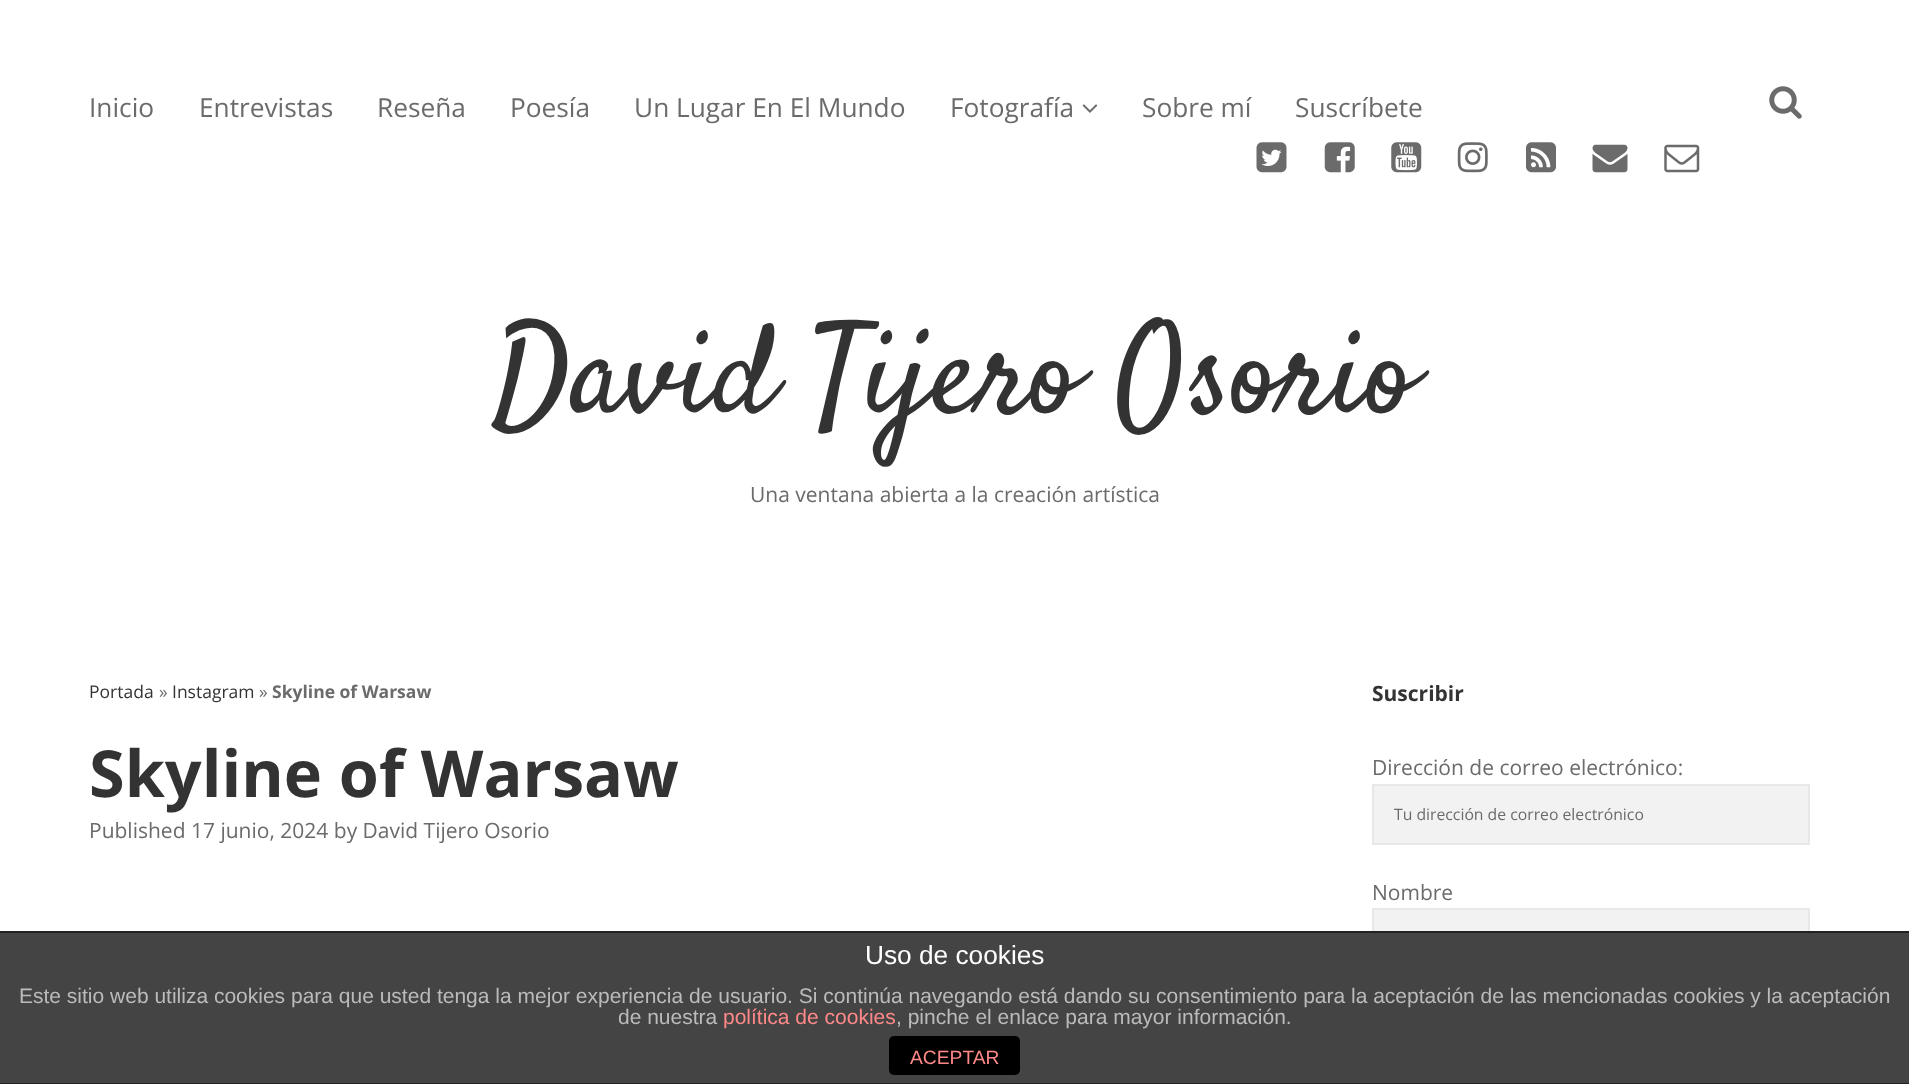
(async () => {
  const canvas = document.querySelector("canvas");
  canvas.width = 1909;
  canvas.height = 1084;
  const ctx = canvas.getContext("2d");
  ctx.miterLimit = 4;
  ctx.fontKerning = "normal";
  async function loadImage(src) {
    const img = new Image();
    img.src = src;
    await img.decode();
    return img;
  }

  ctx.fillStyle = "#ffffff";
  ctx.fillRect(0, 0, 1909, 1084);
  ctx.drawImage(await loadImage("img/1.png"), 1082, 104, 16, 9);
  ctx.drawImage(await loadImage("img/2.png"), 1769, 86, 33, 33);
  ctx.drawImage(await loadImage("img/3.png"), 1256, 142, 31, 31);
  ctx.drawImage(await loadImage("img/4.png"), 1324, 142, 31, 31);
  ctx.drawImage(await loadImage("img/5.png"), 1391, 142, 31, 31);
  ctx.drawImage(await loadImage("img/6.png"), 1457, 142, 31, 31);
  ctx.drawImage(await loadImage("img/7.png"), 1526, 142, 30, 31);
  ctx.drawImage(await loadImage("img/8.png"), 1592, 144, 36, 29);
  ctx.drawImage(await loadImage("img/9.png"), 1664, 144, 36, 29);
  ctx.fillStyle = "#f2f2f2";
  ctx.beginPath();
  ctx.rect(1373, 785, 436, 59);
  ctx.fill();
  ctx.strokeStyle = "#e8e8e8";
  ctx.lineWidth = 2;
  ctx.stroke();
  ctx.fillRect(1374, 910, 434, 21);
  ctx.strokeRect(1373, 909, 436, 61);
  for (const [x, y, w, h, color] of [
    [0, 933, 1909, 150, "#444444"],
    [0, 931, 1909, 2, "#222222"],
    [0, 1083, 1909, 1, "#222222"],
  ]) {
    ctx.fillStyle = color;
    ctx.fillRect(x, y, w, h);
  }
  ctx.fillStyle = "#000000";
  ctx.beginPath();
  ctx.roundRect(889, 1036, 131, 39, 5);
  ctx.fill();
  ctx.font = "26.25px Open Sans";
  ctx.fillStyle = "#6b6b6b";
  for (const [text, x, y] of [
    ["Inicio", 89, 117],
    ["Entrevistas", 199, 117],
    ["Reseña", 377, 117],
    ["Poesía", 510, 117],
    ["Un Lugar En El Mundo", 634, 117],
    ["Fotografía", 950, 117],
    ["Sobre mí", 1142, 117],
    ["Suscríbete", 1295, 117],
  ]) {
    ctx.fillText(text, x, y);
  }
  ctx.font = "126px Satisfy";
  ctx.fillStyle = "#333333";
  ctx.fillText("David Tijero Osorio", 492, 411);
  ctx.font = "21px Open Sans";
  ctx.fillStyle = "#6b6b6b";
  ctx.fillText("Una ventana abierta a la creación artística", 750, 502);
  ctx.font = "17.5px Open Sans";
  ctx.fillStyle = "#333333";
  ctx.fillText("Portada", 89, 698);
  ctx.fillStyle = "#6b6b6b";
  ctx.fillText("»", 159, 698);
  ctx.fillStyle = "#333333";
  ctx.fillText("Instagram", 172, 698);
  ctx.fillStyle = "#6b6b6b";
  ctx.fillText("»", 259, 698);
  ctx.font = "bold 17.5px Open Sans";
  ctx.fillText("Skyline of Warsaw", 272, 698);
  ctx.font = "bold 64.75px Open Sans";
  ctx.fillStyle = "#333333";
  ctx.fillText("Skyline of Warsaw", 89, 797);
  ctx.font = "21px Open Sans";
  ctx.fillStyle = "#6b6b6b";
  ctx.fillText("Published 17 junio, 2024 by David Tijero Osorio", 89, 838);
  ctx.font = "bold 21px Open Sans";
  ctx.fillStyle = "#333333";
  ctx.fillText("Suscribir", 1372, 701);
  ctx.font = "21px Open Sans";
  ctx.fillStyle = "#6b6b6b";
  ctx.fillText("Dirección de correo electrónico:", 1372, 775);
  ctx.font = "15.75px Open Sans";
  ctx.fillText("Tu dirección de correo electrónico", 1394, 820);
  ctx.font = "21px Open Sans";
  ctx.fillText("Nombre", 1372, 900);
  ctx.font = "26.25px Liberation Sans";
  ctx.fillStyle = "#ffffff";
  ctx.fillText("Uso de cookies", 865, 964);
  ctx.font = "21px Liberation Sans";
  ctx.fillStyle = "#bbbbbb";
  ctx.fillText("Este sitio web utiliza cookies para que usted tenga la mejor experiencia de usuario. Si continúa navegando está dando su consentimiento para la aceptación de las mencionadas cookies y la aceptación", 19, 1003);
  ctx.fillText("de nuestra", 618, 1024);
  ctx.fillStyle = "#ff8888";
  ctx.fillText("política de cookies", 723, 1024);
  ctx.fillStyle = "#bbbbbb";
  ctx.fillText(", pinche el enlace para mayor información.", 896, 1024);
  ctx.font = "19.25px Liberation Sans";
  ctx.fillStyle = "#ff8888";
  ctx.fillText("ACEPTAR", 910, 1064);
})();
